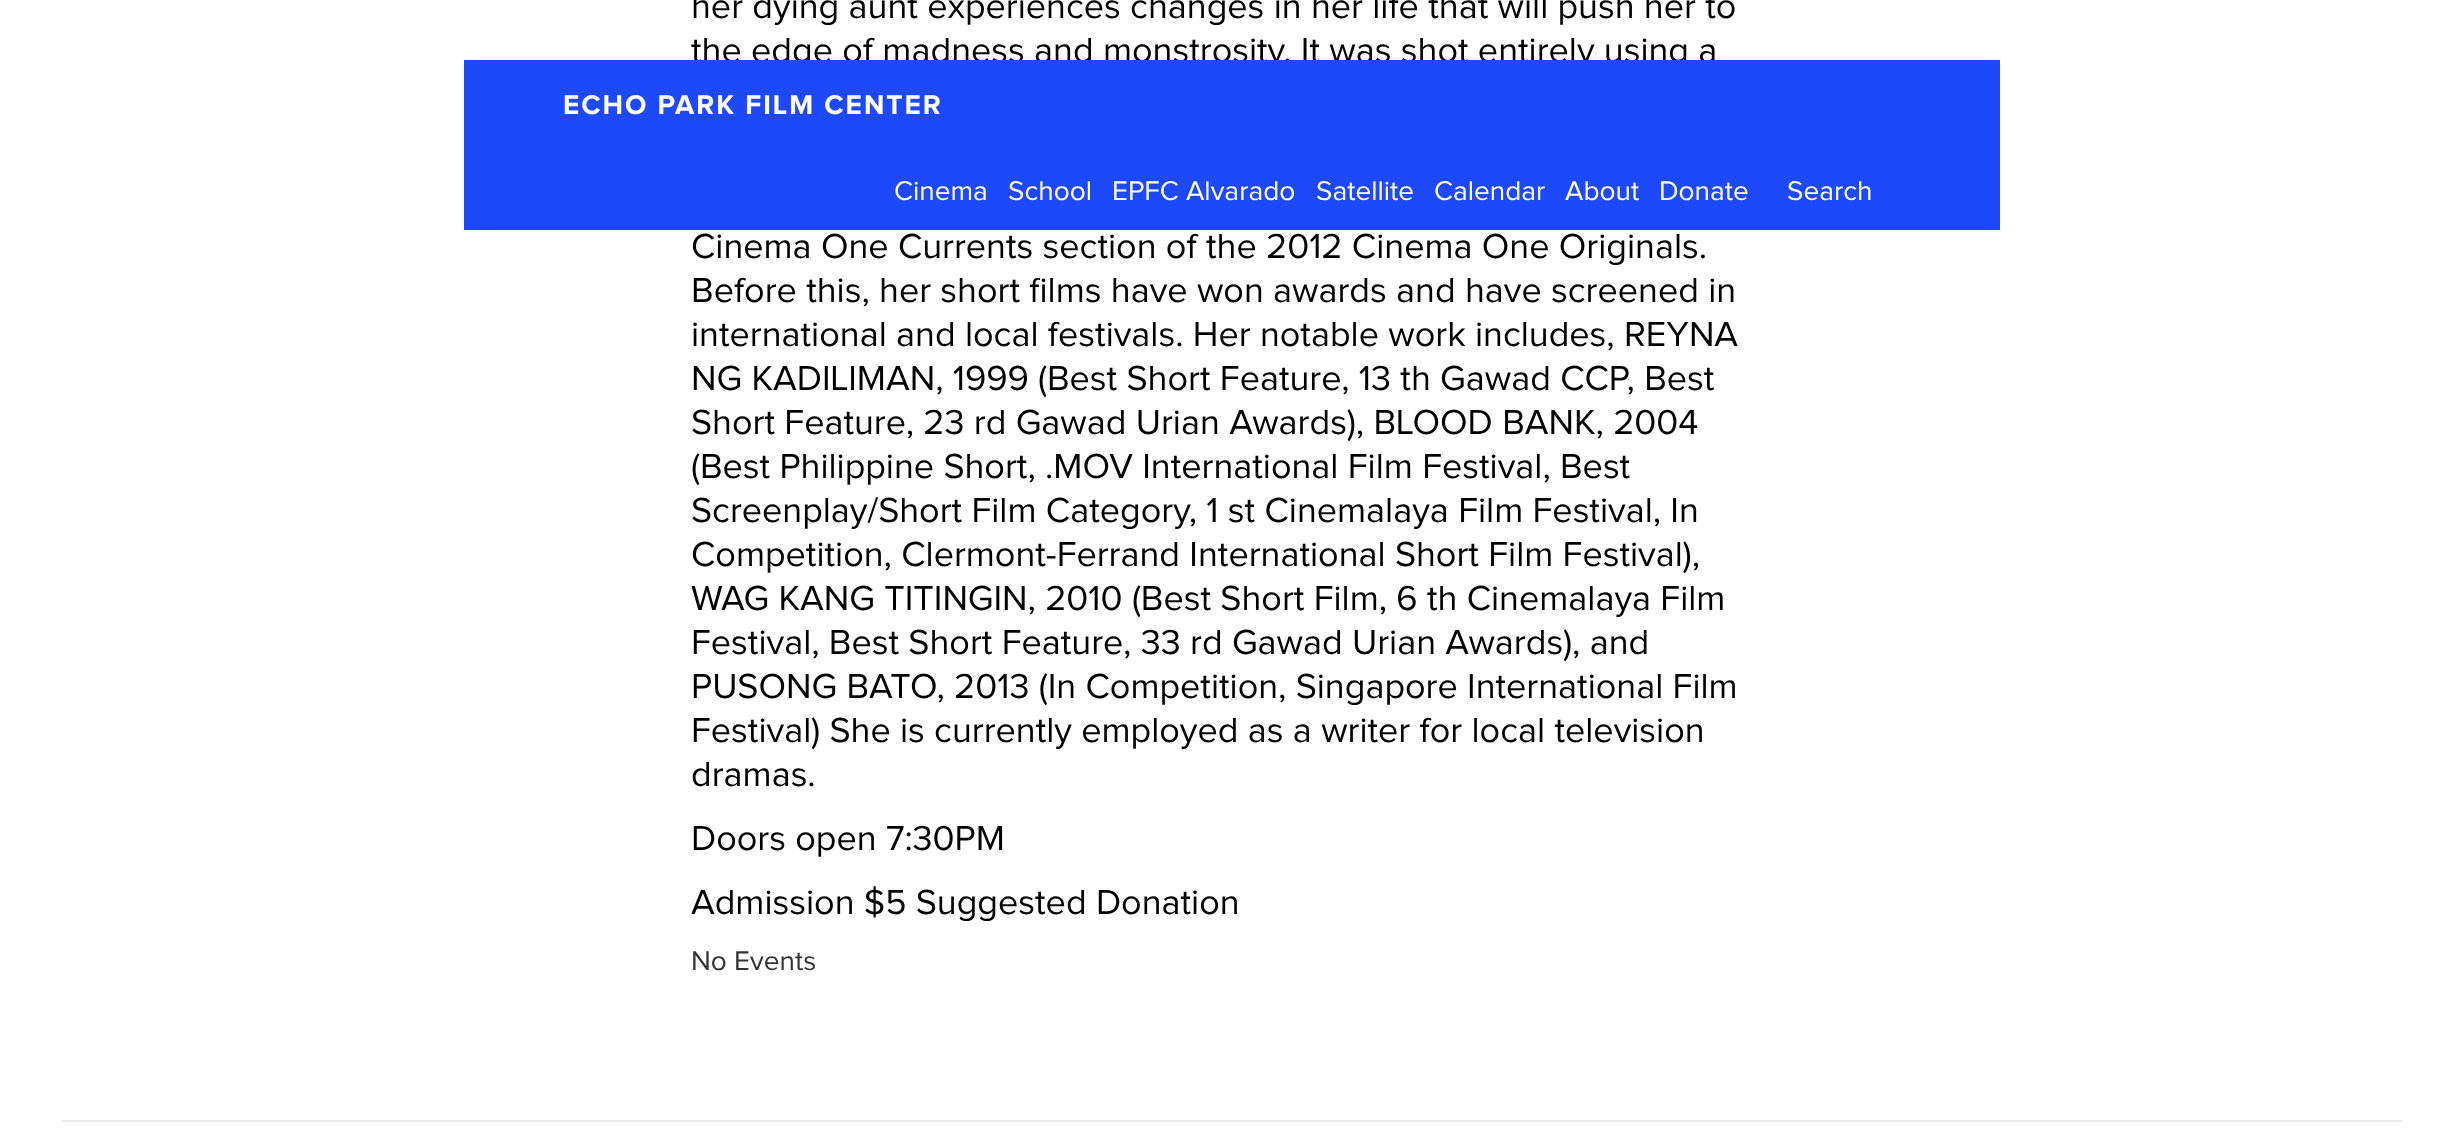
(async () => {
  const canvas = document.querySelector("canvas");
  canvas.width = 2462;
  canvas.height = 1134;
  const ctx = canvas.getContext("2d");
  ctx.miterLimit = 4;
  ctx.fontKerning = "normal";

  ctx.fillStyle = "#ffffff";
  ctx.fillRect(0, 0, 2462, 1134);
  ctx.fillStyle = "#ebebeb";
  ctx.fillRect(62, 1120, 2340, 2);
  ctx.font = "36px Proxima Nova";
  ctx.fillStyle = "#000000";
  for (const [text, x, y] of [
    ["her dying aunt experiences changes in her life that will push her to", 691, 18],
    ["the edge of madness and monstrosity. It was shot entirely using a", 691, 62],
    ["Cinema One Currents section of the 2012 Cinema One Originals.", 691, 258],
    ["Before this, her short films have won awards and have screened in", 691, 302],
    ["international and local festivals. Her notable work includes, REYNA", 691, 346],
    ["NG KADILIMAN, 1999 (Best Short Feature, 13 th Gawad CCP, Best", 691, 390],
    ["Short Feature, 23 rd Gawad Urian Awards), BLOOD BANK, 2004", 691, 434],
    ["(Best Philippine Short, .MOV International Film Festival, Best", 691, 478],
    ["Screenplay/Short Film Category, 1 st Cinemalaya Film Festival, In", 691, 522],
    ["Competition, Clermont-Ferrand International Short Film Festival),", 691, 566],
    ["WAG KANG TITINGIN, 2010 (Best Short Film, 6 th Cinemalaya Film", 691, 610],
    ["Festival, Best Short Feature, 33 rd Gawad Urian Awards), and", 691, 654],
    ["PUSONG BATO, 2013 (In Competition, Singapore International Film", 691, 698],
    ["Festival) She is currently employed as a writer for local television", 691, 742],
    ["dramas.", 691, 786],
    ["Doors open 7:30PM", 691, 850],
    ["Admission $5 Suggested Donation", 691, 914],
  ]) {
    ctx.fillText(text, x, y);
  }
  ctx.font = "28px Proxima Nova";
  ctx.fillStyle = "#333333";
  ctx.fillText("No Events", 691, 970);
  ctx.fillStyle = "#1d49fb";
  ctx.fillRect(464, 60, 1536, 170);
  ctx.letterSpacing = "2px";
  ctx.font = "bold 28px Proxima Nova";
  ctx.fillStyle = "#ffffff";
  ctx.fillText("ECHO PARK FILM CENTER", 563, 114);
  ctx.letterSpacing = "0px";
  ctx.font = "28px Proxima Nova";
  for (const [text, x, y] of [
    ["Cinema", 894, 200],
    ["School", 1008, 200],
    ["EPFC Alvarado", 1112, 200],
    ["Satellite", 1316, 200],
    ["Calendar", 1434, 200],
    ["About", 1565, 200],
    ["Donate", 1659, 200],
    ["Search", 1787, 200],
  ]) {
    ctx.fillText(text, x, y);
  }
})();
